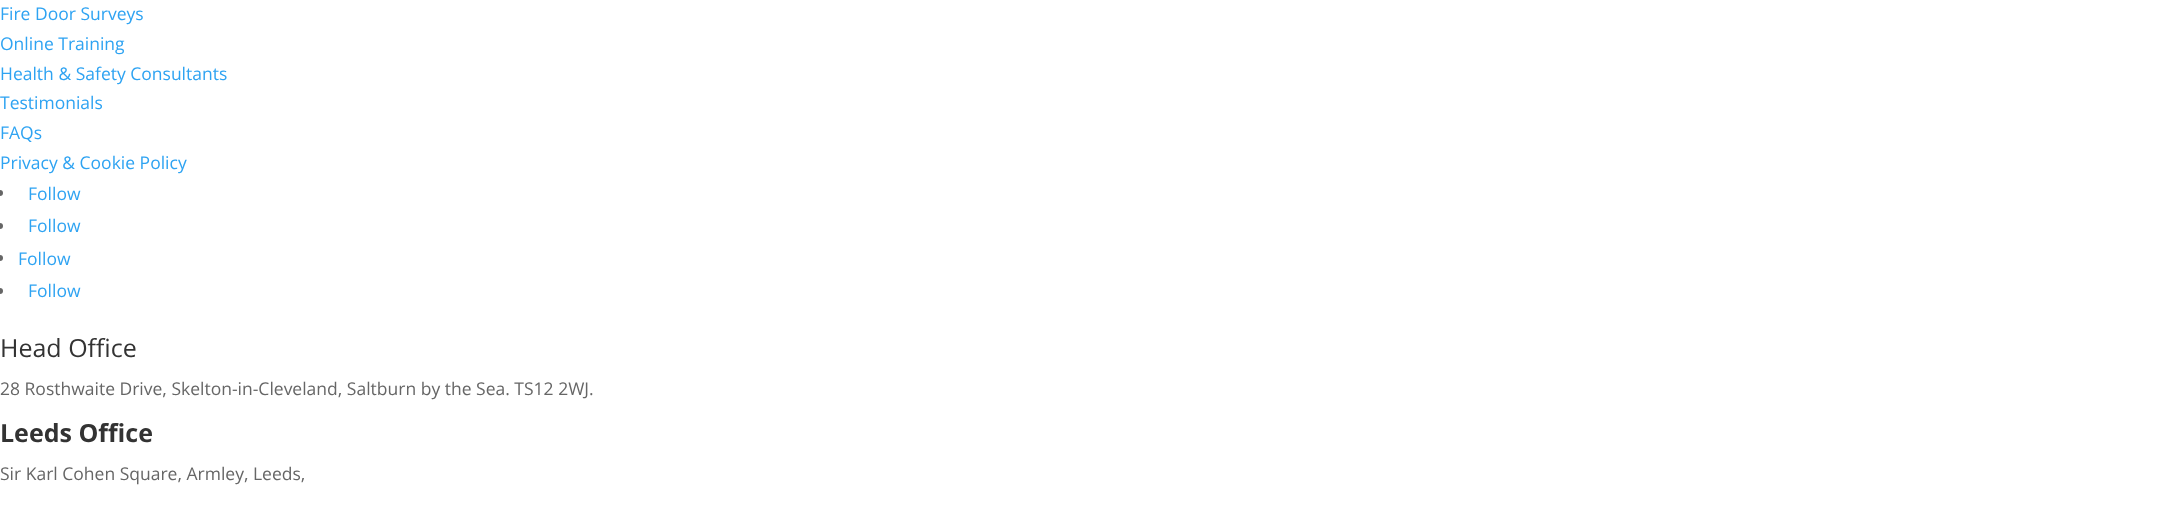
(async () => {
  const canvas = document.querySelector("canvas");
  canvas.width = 2164;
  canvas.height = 515;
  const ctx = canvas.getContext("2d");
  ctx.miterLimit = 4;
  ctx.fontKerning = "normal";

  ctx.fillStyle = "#ffffff";
  ctx.fillRect(0, 0, 2164, 515);
  ctx.fillStyle = "#666666";
  ctx.beginPath();
  ctx.arc(0, 193, 3, 0, Math.PI * 2);
  ctx.fill();
  ctx.beginPath();
  ctx.arc(0, 226, 3, 0, Math.PI * 2);
  ctx.fill();
  ctx.beginPath();
  ctx.arc(0, 258, 3, 0, Math.PI * 2);
  ctx.fill();
  ctx.beginPath();
  ctx.arc(0, 291, 3, 0, Math.PI * 2);
  ctx.fill();
  ctx.font = "17.5px Open Sans";
  ctx.fillStyle = "#2ea3f2";
  for (const [text, x, y] of [
    ["Fire Door Surveys", 0, 20],
    ["Online Training", 0, 50],
    ["Health & Safety Consultants", 0, 80],
    ["Testimonials", 0, 109],
    ["FAQs", 0, 139],
    ["Privacy & Cookie Policy", 0, 169],
    ["Follow", 28, 200],
    ["Follow", 28, 232],
    ["Follow", 18, 265],
    ["Follow", 28, 297],
  ]) {
    ctx.fillText(text, x, y);
  }
  ctx.font = "25px Open Sans";
  ctx.fillStyle = "#333333";
  ctx.fillText("Head Office", 0, 357);
  ctx.font = "17.5px Open Sans";
  ctx.fillStyle = "#666666";
  ctx.fillText("28 Rosthwaite Drive, Skelton-in-Cleveland, Saltburn by the Sea. TS12 2WJ.", 0, 395);
  ctx.font = "bold 25px Open Sans";
  ctx.fillStyle = "#333333";
  ctx.fillText("Leeds Office", 0, 442);
  ctx.font = "17.5px Open Sans";
  ctx.fillStyle = "#666666";
  ctx.fillText("Sir Karl Cohen Square, Armley, Leeds,", 0, 480);
})();
